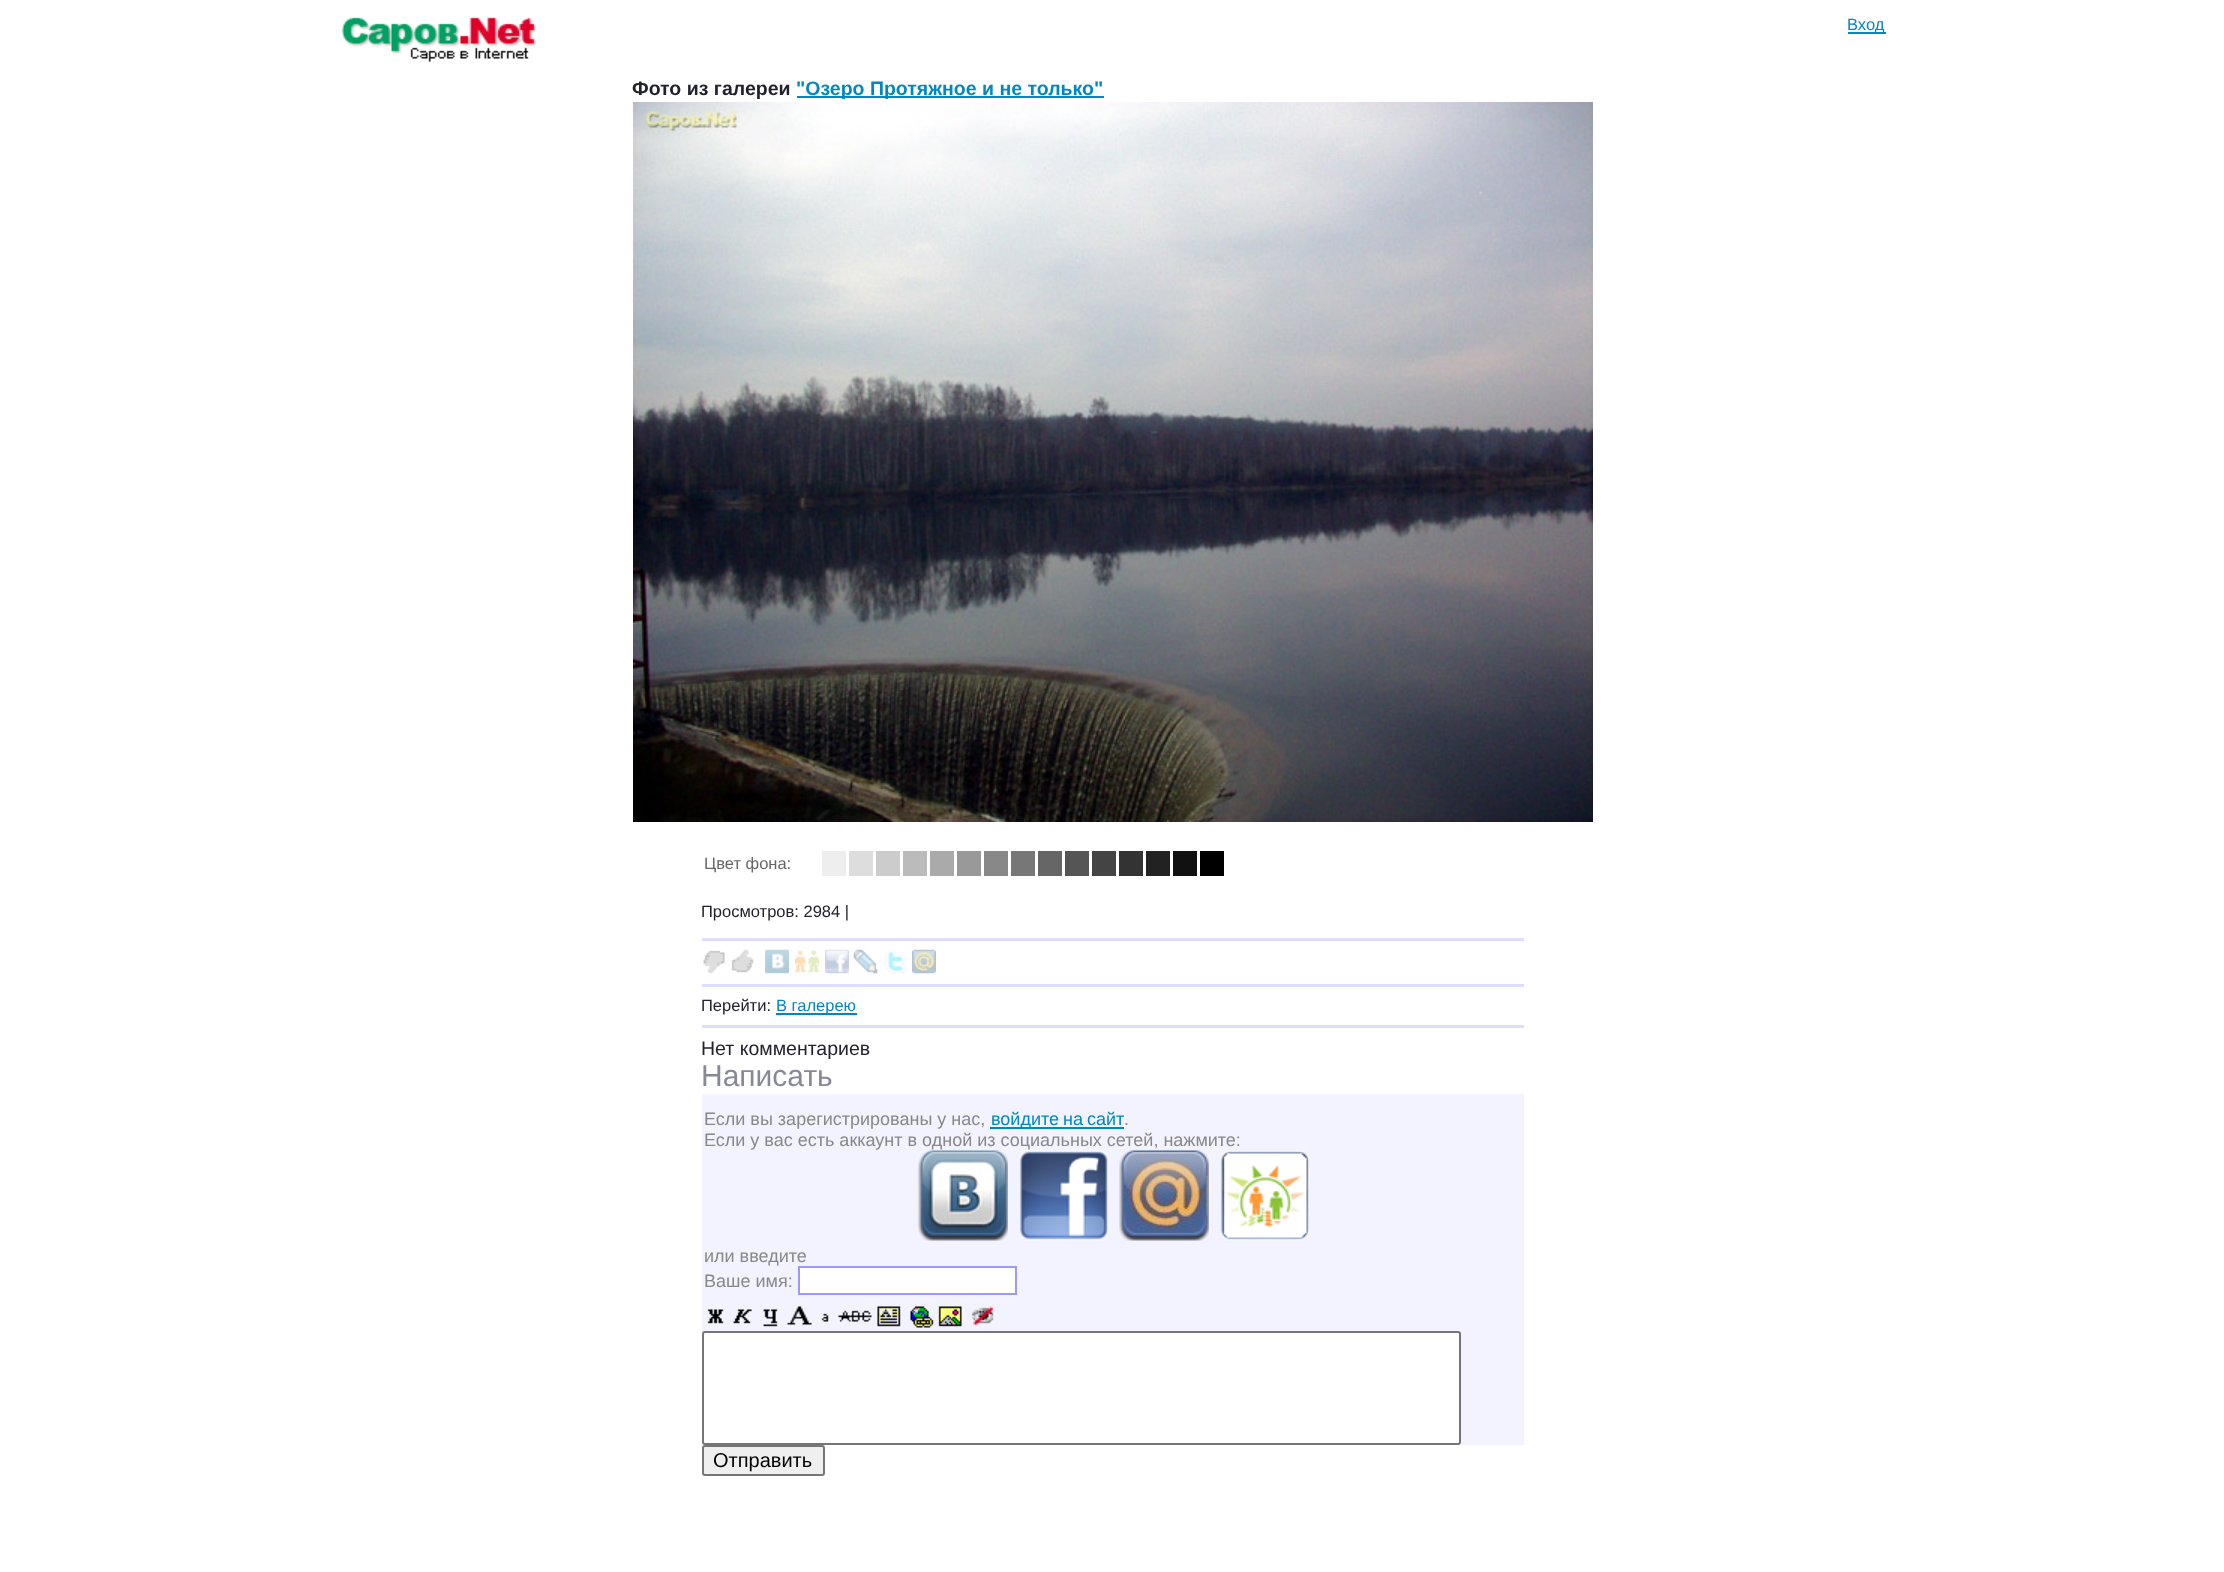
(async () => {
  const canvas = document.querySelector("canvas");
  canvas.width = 2224;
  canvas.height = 1572;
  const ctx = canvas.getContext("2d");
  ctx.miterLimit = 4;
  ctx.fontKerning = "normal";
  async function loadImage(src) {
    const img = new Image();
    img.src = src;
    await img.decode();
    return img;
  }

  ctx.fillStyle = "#ffffff";
  ctx.fillRect(0, 0, 2224, 1572);
  ctx.drawImage(await loadImage("img/1.png"), 341, 17, 195, 45);
  ctx.fillStyle = "#0088c1";
  ctx.fillRect(1848, 32, 38, 2);
  ctx.fillRect(797, 96, 307, 2);
  ctx.drawImage(await loadImage("img/2.png"), 633, 102, 960, 720);
  for (const [x, y, w, h, color] of [
    [822, 851, 24, 25, "#eeeeee"],
    [849, 851, 24, 25, "#dddddd"],
    [876, 851, 24, 25, "#cccccc"],
    [903, 851, 24, 25, "#bbbbbb"],
    [930, 851, 24, 25, "#aaaaaa"],
    [957, 851, 24, 25, "#999999"],
    [984, 851, 24, 25, "#888888"],
    [1011, 851, 24, 25, "#777777"],
    [1038, 851, 24, 25, "#666666"],
    [1065, 851, 24, 25, "#555555"],
    [1092, 851, 24, 25, "#444444"],
    [1119, 851, 24, 25, "#333333"],
    [1146, 851, 24, 25, "#222222"],
    [1173, 851, 24, 25, "#111111"],
    [1200, 851, 24, 25, "#000000"],
    [702, 938, 822, 3, "#ddddff"],
  ]) {
    ctx.fillStyle = color;
    ctx.fillRect(x, y, w, h);
  }
  ctx.drawImage(await loadImage("img/3.png"), 703, 950, 22, 24);
  ctx.drawImage(await loadImage("img/4.png"), 731, 949, 23, 24);
  ctx.drawImage(await loadImage("img/5.png"), 765, 949, 24, 25);
  ctx.drawImage(await loadImage("img/6.png"), 795, 950, 24, 23);
  ctx.drawImage(await loadImage("img/7.png"), 825, 949, 24, 25);
  ctx.drawImage(await loadImage("img/8.png"), 853, 949, 25, 25);
  ctx.drawImage(await loadImage("img/9.png"), 885, 950, 21, 24);
  ctx.drawImage(await loadImage("img/10.png"), 912, 949, 24, 25);
  for (const [x, y, w, h, color] of [
    [702, 984, 822, 3, "#ddddff"],
    [776, 1013, 81, 2, "#0088c1"],
    [702, 1025, 822, 3, "#ddddff"],
    [702, 1094, 822, 351, "#f3f3ff"],
    [990, 1127, 134, 2, "#0088c1"],
  ]) {
    ctx.fillStyle = color;
    ctx.fillRect(x, y, w, h);
  }
  ctx.drawImage(await loadImage("img/11.png"), 918, 1150, 90, 91);
  ctx.drawImage(await loadImage("img/12.png"), 1019, 1150, 90, 91);
  ctx.drawImage(await loadImage("img/13.png"), 1119, 1150, 90, 91);
  ctx.drawImage(await loadImage("img/14.png"), 1220, 1150, 90, 91);
  ctx.fillStyle = "#ffffff";
  ctx.beginPath();
  ctx.rect(799, 1267, 217, 27);
  ctx.fill();
  ctx.strokeStyle = "#9999ff";
  ctx.lineWidth = 2;
  ctx.stroke();
  ctx.drawImage(await loadImage("img/15.png"), 707, 1306, 288, 22);
  ctx.beginPath();
  ctx.roundRect(703, 1332, 757, 112, 2);
  ctx.fill();
  ctx.strokeStyle = "#767676";
  ctx.stroke();
  ctx.fillStyle = "#efefef";
  ctx.beginPath();
  ctx.roundRect(703, 1446, 121, 29, 2);
  ctx.fill();
  ctx.stroke();
  ctx.font = "16.5px Liberation Sans";
  ctx.fillStyle = "#0088c1";
  ctx.fillText("Вход", 1847, 30);
  ctx.font = "bold 19.5px Liberation Sans";
  ctx.fillStyle = "#22222f";
  ctx.fillText("Фото из галереи", 632, 95);
  ctx.fillStyle = "#0088c1";
  ctx.fillText("\"Озеро Протяжное и не только\"", 796, 95);
  ctx.font = "16.5px Liberation Sans";
  ctx.fillStyle = "#666666";
  ctx.fillText("Цвет фона:", 704, 869);
  ctx.fillStyle = "#22222f";
  ctx.fillText("Просмотров: 2984 |", 701, 917);
  ctx.fillText("Перейти:", 701, 1011);
  ctx.fillStyle = "#0088c1";
  ctx.fillText("В галерею", 776, 1011);
  ctx.font = "19.5px Liberation Sans";
  ctx.fillStyle = "#22222f";
  ctx.fillText("Нет комментариев", 701, 1055);
  ctx.font = "30px Liberation Sans";
  ctx.fillStyle = "#888899";
  ctx.fillText("Написать", 701, 1086);
  ctx.font = "18px Liberation Sans";
  ctx.fillStyle = "#888888";
  ctx.fillText("Если вы зарегистрированы у нас,", 704, 1125);
  ctx.wordSpacing = "-1px";
  ctx.fillStyle = "#0088c1";
  ctx.fillText("войдите на сайт", 991, 1125);
  ctx.wordSpacing = "0px";
  ctx.fillStyle = "#888888";
  for (const [text, x, y] of [
    [".", 1124, 1125],
    ["Если у вас есть аккаунт в одной из социальных сетей, нажмите:", 704, 1146],
    ["или введите", 704, 1262],
    ["Ваше имя:", 704, 1287],
  ]) {
    ctx.fillText(text, x, y);
  }
  ctx.font = "20px Liberation Sans";
  ctx.fillStyle = "#000000";
  ctx.fillText("Отправить", 713, 1467);
})();
